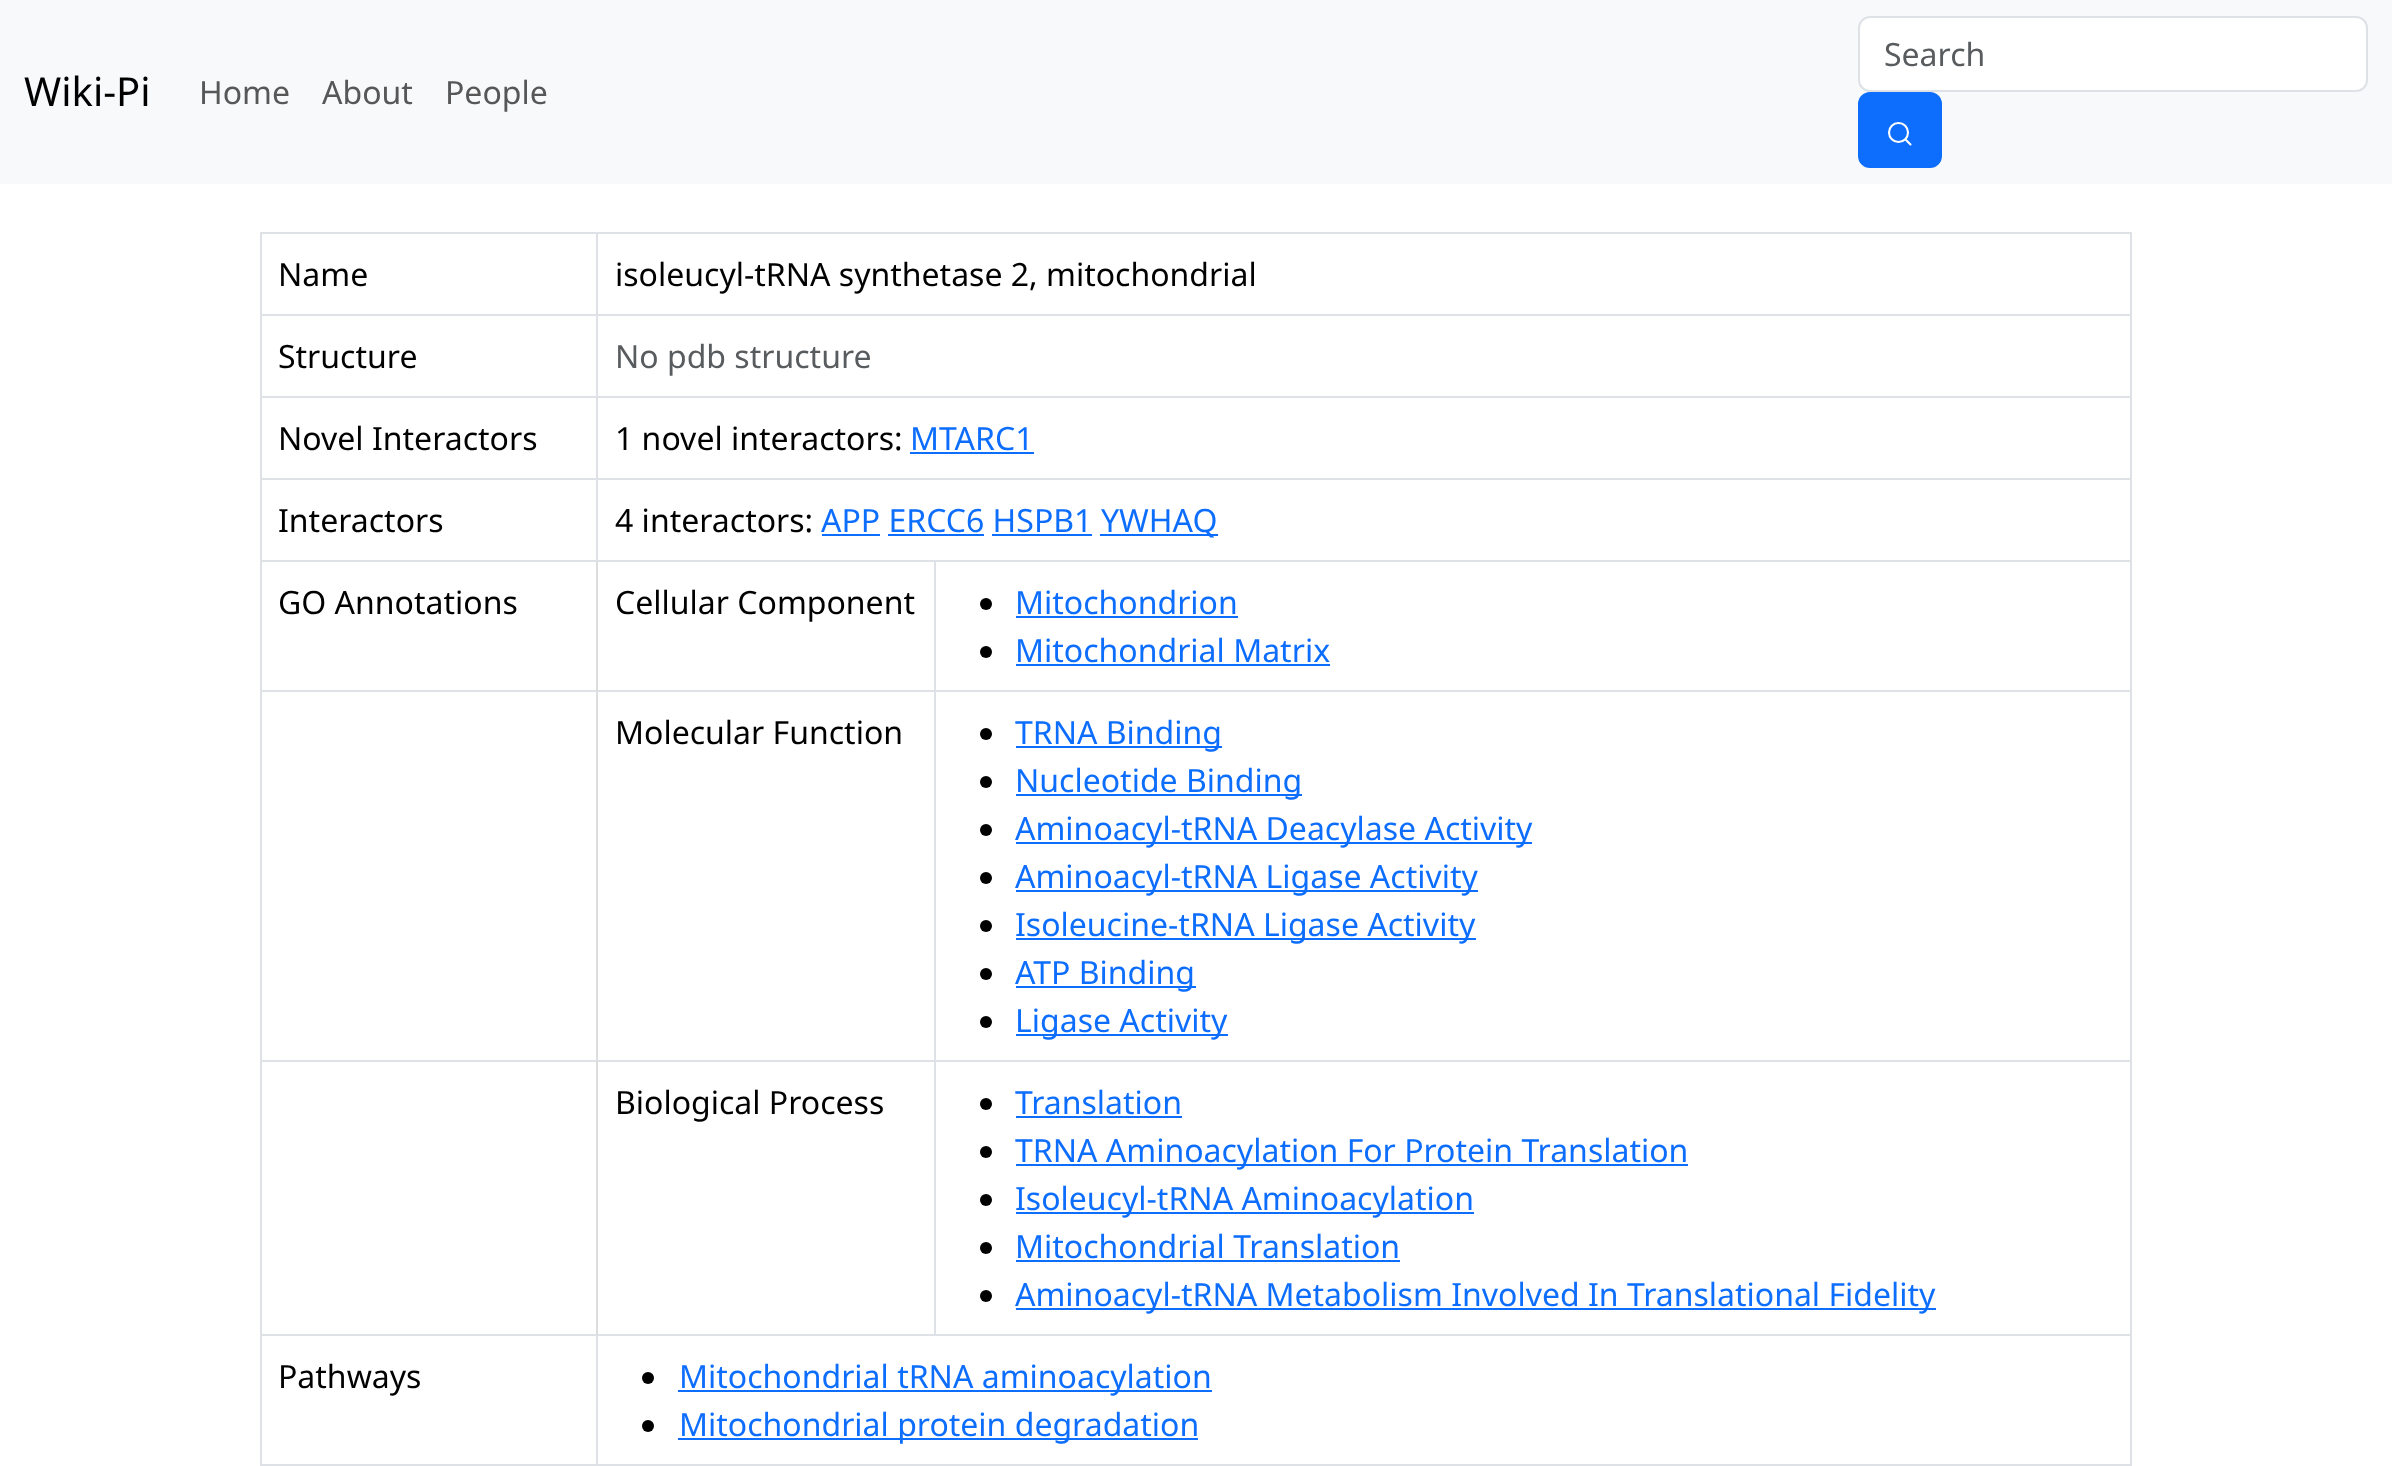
(async () => {
  const canvas = document.querySelector("canvas");
  canvas.width = 2392;
  canvas.height = 1466;
  const ctx = canvas.getContext("2d");
  ctx.miterLimit = 4;
  ctx.fontKerning = "normal";
  let path;

  ctx.fillStyle = "#ffffff";
  ctx.fillRect(0, 0, 2392, 1466);
  ctx.fillStyle = "#f8f9fa";
  ctx.fillRect(0, 0, 2392, 184);
  ctx.fillStyle = "#ffffff";
  ctx.beginPath();
  ctx.roundRect(1859, 17, 508, 74, 11);
  ctx.fill();
  ctx.strokeStyle = "#dee2e6";
  ctx.lineWidth = 2;
  ctx.stroke();
  ctx.fillStyle = "#0d6efd";
  ctx.beginPath();
  ctx.roundRect(1859, 93, 82, 74, 11);
  ctx.fill();
  ctx.strokeStyle = "#0d6efd";
  ctx.stroke();
  ctx.beginPath();
  ctx.arc(1898.5, 132.5, 9.5, 0, Math.PI * 2);
  ctx.strokeStyle = "#ffffff";
  ctx.lineWidth = 2.1;
  ctx.stroke();
  path = new Path2D("M1910.5 144.5L1906 140");
  ctx.lineCap = "round";
  ctx.stroke(path);
  for (const [x, y, w, h, color] of [
    [260, 232, 1872, 2, "#dee2e6"],
    [260, 314, 1872, 2, "#dee2e6"],
    [260, 396, 1872, 2, "#dee2e6"],
    [910, 452, 124, 2, "#0d6efd"],
    [260, 478, 1872, 2, "#dee2e6"],
    [260, 560, 1872, 2, "#dee2e6"],
    [260, 690, 1872, 2, "#dee2e6"],
    [260, 1060, 1872, 2, "#dee2e6"],
    [260, 1334, 1872, 2, "#dee2e6"],
    [260, 1464, 1872, 2, "#dee2e6"],
    [596, 1334, 2, 132, "#dee2e6"],
    [596, 560, 2, 776, "#dddddd"],
    [596, 232, 2, 330, "#dee2e6"],
    [822, 534, 58, 2, "#0d6efd"],
    [1100, 534, 118, 2, "#0d6efd"],
    [888, 534, 96, 2, "#0d6efd"],
    [992, 534, 100, 2, "#0d6efd"],
  ]) {
    ctx.fillStyle = color;
    ctx.fillRect(x, y, w, h);
  }
  ctx.fillStyle = "#000000";
  ctx.beginPath();
  ctx.arc(986, 604, 6, 0, Math.PI * 2);
  ctx.fill();
  ctx.fillStyle = "#0d6efd";
  ctx.fillRect(1016, 616, 222, 2);
  ctx.fillStyle = "#000000";
  ctx.beginPath();
  ctx.arc(986, 652, 6, 0, Math.PI * 2);
  ctx.fill();
  ctx.fillStyle = "#0d6efd";
  ctx.fillRect(1016, 664, 314, 2);
  ctx.fillStyle = "#000000";
  ctx.beginPath();
  ctx.arc(986, 734, 6, 0, Math.PI * 2);
  ctx.fill();
  ctx.fillStyle = "#0d6efd";
  ctx.fillRect(1016, 746, 206, 2);
  ctx.fillStyle = "#000000";
  ctx.beginPath();
  ctx.arc(986, 782, 6, 0, Math.PI * 2);
  ctx.fill();
  ctx.fillStyle = "#0d6efd";
  ctx.fillRect(1016, 794, 286, 2);
  ctx.fillStyle = "#000000";
  ctx.beginPath();
  ctx.arc(986, 830, 6, 0, Math.PI * 2);
  ctx.fill();
  ctx.fillStyle = "#0d6efd";
  ctx.fillRect(1016, 842, 516, 2);
  ctx.fillStyle = "#000000";
  ctx.beginPath();
  ctx.arc(986, 878, 6, 0, Math.PI * 2);
  ctx.fill();
  ctx.fillStyle = "#0d6efd";
  ctx.fillRect(1016, 890, 462, 2);
  ctx.fillStyle = "#000000";
  ctx.beginPath();
  ctx.arc(986, 926, 6, 0, Math.PI * 2);
  ctx.fill();
  ctx.fillStyle = "#0d6efd";
  ctx.fillRect(1016, 938, 460, 2);
  ctx.fillStyle = "#000000";
  ctx.beginPath();
  ctx.arc(986, 974, 6, 0, Math.PI * 2);
  ctx.fill();
  ctx.fillStyle = "#0d6efd";
  ctx.fillRect(1016, 986, 180, 2);
  ctx.fillStyle = "#000000";
  ctx.beginPath();
  ctx.arc(986, 1022, 6, 0, Math.PI * 2);
  ctx.fill();
  ctx.fillStyle = "#0d6efd";
  ctx.fillRect(1016, 1034, 212, 2);
  ctx.fillStyle = "#dee2e6";
  ctx.fillRect(934, 560, 2, 776);
  ctx.fillStyle = "#000000";
  ctx.beginPath();
  ctx.arc(986, 1104, 6, 0, Math.PI * 2);
  ctx.fill();
  ctx.fillStyle = "#0d6efd";
  ctx.fillRect(1016, 1116, 166, 2);
  ctx.fillStyle = "#000000";
  ctx.beginPath();
  ctx.arc(986, 1152, 6, 0, Math.PI * 2);
  ctx.fill();
  ctx.fillStyle = "#0d6efd";
  ctx.fillRect(1016, 1164, 672, 2);
  ctx.fillStyle = "#000000";
  ctx.beginPath();
  ctx.arc(986, 1200, 6, 0, Math.PI * 2);
  ctx.fill();
  ctx.fillStyle = "#0d6efd";
  ctx.fillRect(1016, 1212, 458, 2);
  ctx.fillStyle = "#000000";
  ctx.beginPath();
  ctx.arc(986, 1248, 6, 0, Math.PI * 2);
  ctx.fill();
  ctx.fillStyle = "#0d6efd";
  ctx.fillRect(1016, 1260, 384, 2);
  ctx.fillStyle = "#000000";
  ctx.beginPath();
  ctx.arc(986, 1296, 6, 0, Math.PI * 2);
  ctx.fill();
  for (const [x, y, w, h, color] of [
    [1016, 1308, 920, 2, "#0d6efd"],
    [260, 232, 2, 1234, "#dee2e6"],
    [2130, 232, 2, 1234, "#dee2e6"],
  ]) {
    ctx.fillStyle = color;
    ctx.fillRect(x, y, w, h);
  }
  ctx.fillStyle = "#000000";
  ctx.beginPath();
  ctx.arc(648, 1378, 6, 0, Math.PI * 2);
  ctx.fill();
  ctx.fillStyle = "#0d6efd";
  ctx.fillRect(678, 1390, 534, 2);
  ctx.fillStyle = "#000000";
  ctx.beginPath();
  ctx.arc(648, 1426, 6, 0, Math.PI * 2);
  ctx.fill();
  ctx.fillStyle = "#0d6efd";
  ctx.fillRect(678, 1438, 520, 2);
  ctx.font = "40px Noto Sans";
  ctx.fillStyle = "#000000";
  ctx.fillText("Wiki-Pi", 24, 106);
  ctx.font = "32px Noto Sans";
  ctx.fillStyle = "#595c5f";
  ctx.fillText("Search", 1884, 66);
  ctx.fillStyle = "#575758";
  for (const [text, x, y] of [
    ["Home", 199, 104],
    ["About", 322, 104],
    ["People", 445, 104],
  ]) {
    ctx.fillText(text, x, y);
  }
  ctx.fillStyle = "#000000";
  for (const [text, x, y] of [
    ["Name", 278, 286],
    ["isoleucyl-tRNA synthetase 2, mitochondrial", 615, 286],
    ["Structure", 278, 368],
  ]) {
    ctx.fillText(text, x, y);
  }
  ctx.fillStyle = "#595c5f";
  ctx.fillText("No pdb structure", 615, 368);
  ctx.fillStyle = "#000000";
  ctx.fillText("Novel Interactors", 278, 450);
  ctx.fillText("1 novel interactors:", 615, 450);
  ctx.fillStyle = "#0d6efd";
  ctx.fillText("MTARC1", 910, 450);
  ctx.fillStyle = "#000000";
  ctx.fillText("Interactors", 278, 532);
  ctx.fillText("4 interactors:", 615, 532);
  ctx.fillStyle = "#0d6efd";
  ctx.fillText("APP ERCC6 HSPB1", 821, 532);
  ctx.fillText("YWHAQ", 1101, 532);
  ctx.fillStyle = "#000000";
  ctx.fillText("GO Annotations", 278, 614);
  ctx.fillText("Cellular Component", 615, 614);
  ctx.fillStyle = "#0d6efd";
  ctx.fillText("Mitochondrion", 1015, 614);
  ctx.fillText("Mitochondrial Matrix", 1015, 662);
  ctx.fillStyle = "#000000";
  ctx.fillText("Molecular Function", 615, 744);
  ctx.fillStyle = "#0d6efd";
  for (const [text, x, y] of [
    ["TRNA Binding", 1015, 744],
    ["Nucleotide Binding", 1015, 792],
    ["Aminoacyl-tRNA Deacylase Activity", 1015, 840],
    ["Aminoacyl-tRNA Ligase Activity", 1015, 888],
    ["Isoleucine-tRNA Ligase Activity", 1015, 936],
    ["ATP Binding", 1015, 984],
    ["Ligase Activity", 1015, 1032],
  ]) {
    ctx.fillText(text, x, y);
  }
  ctx.fillStyle = "#000000";
  ctx.fillText("Biological Process", 615, 1114);
  ctx.fillStyle = "#0d6efd";
  for (const [text, x, y] of [
    ["Translation", 1015, 1114],
    ["TRNA Aminoacylation For Protein Translation", 1015, 1162],
    ["Isoleucyl-tRNA Aminoacylation", 1015, 1210],
    ["Mitochondrial Translation", 1015, 1258],
    ["Aminoacyl-tRNA Metabolism Involved In Translational Fidelity", 1015, 1306],
  ]) {
    ctx.fillText(text, x, y);
  }
  ctx.fillStyle = "#000000";
  ctx.fillText("Pathways", 278, 1388);
  ctx.fillStyle = "#0d6efd";
  ctx.fillText("Mitochondrial tRNA aminoacylation", 679, 1388);
  ctx.fillText("Mitochondrial protein degradation", 679, 1436);
})();
